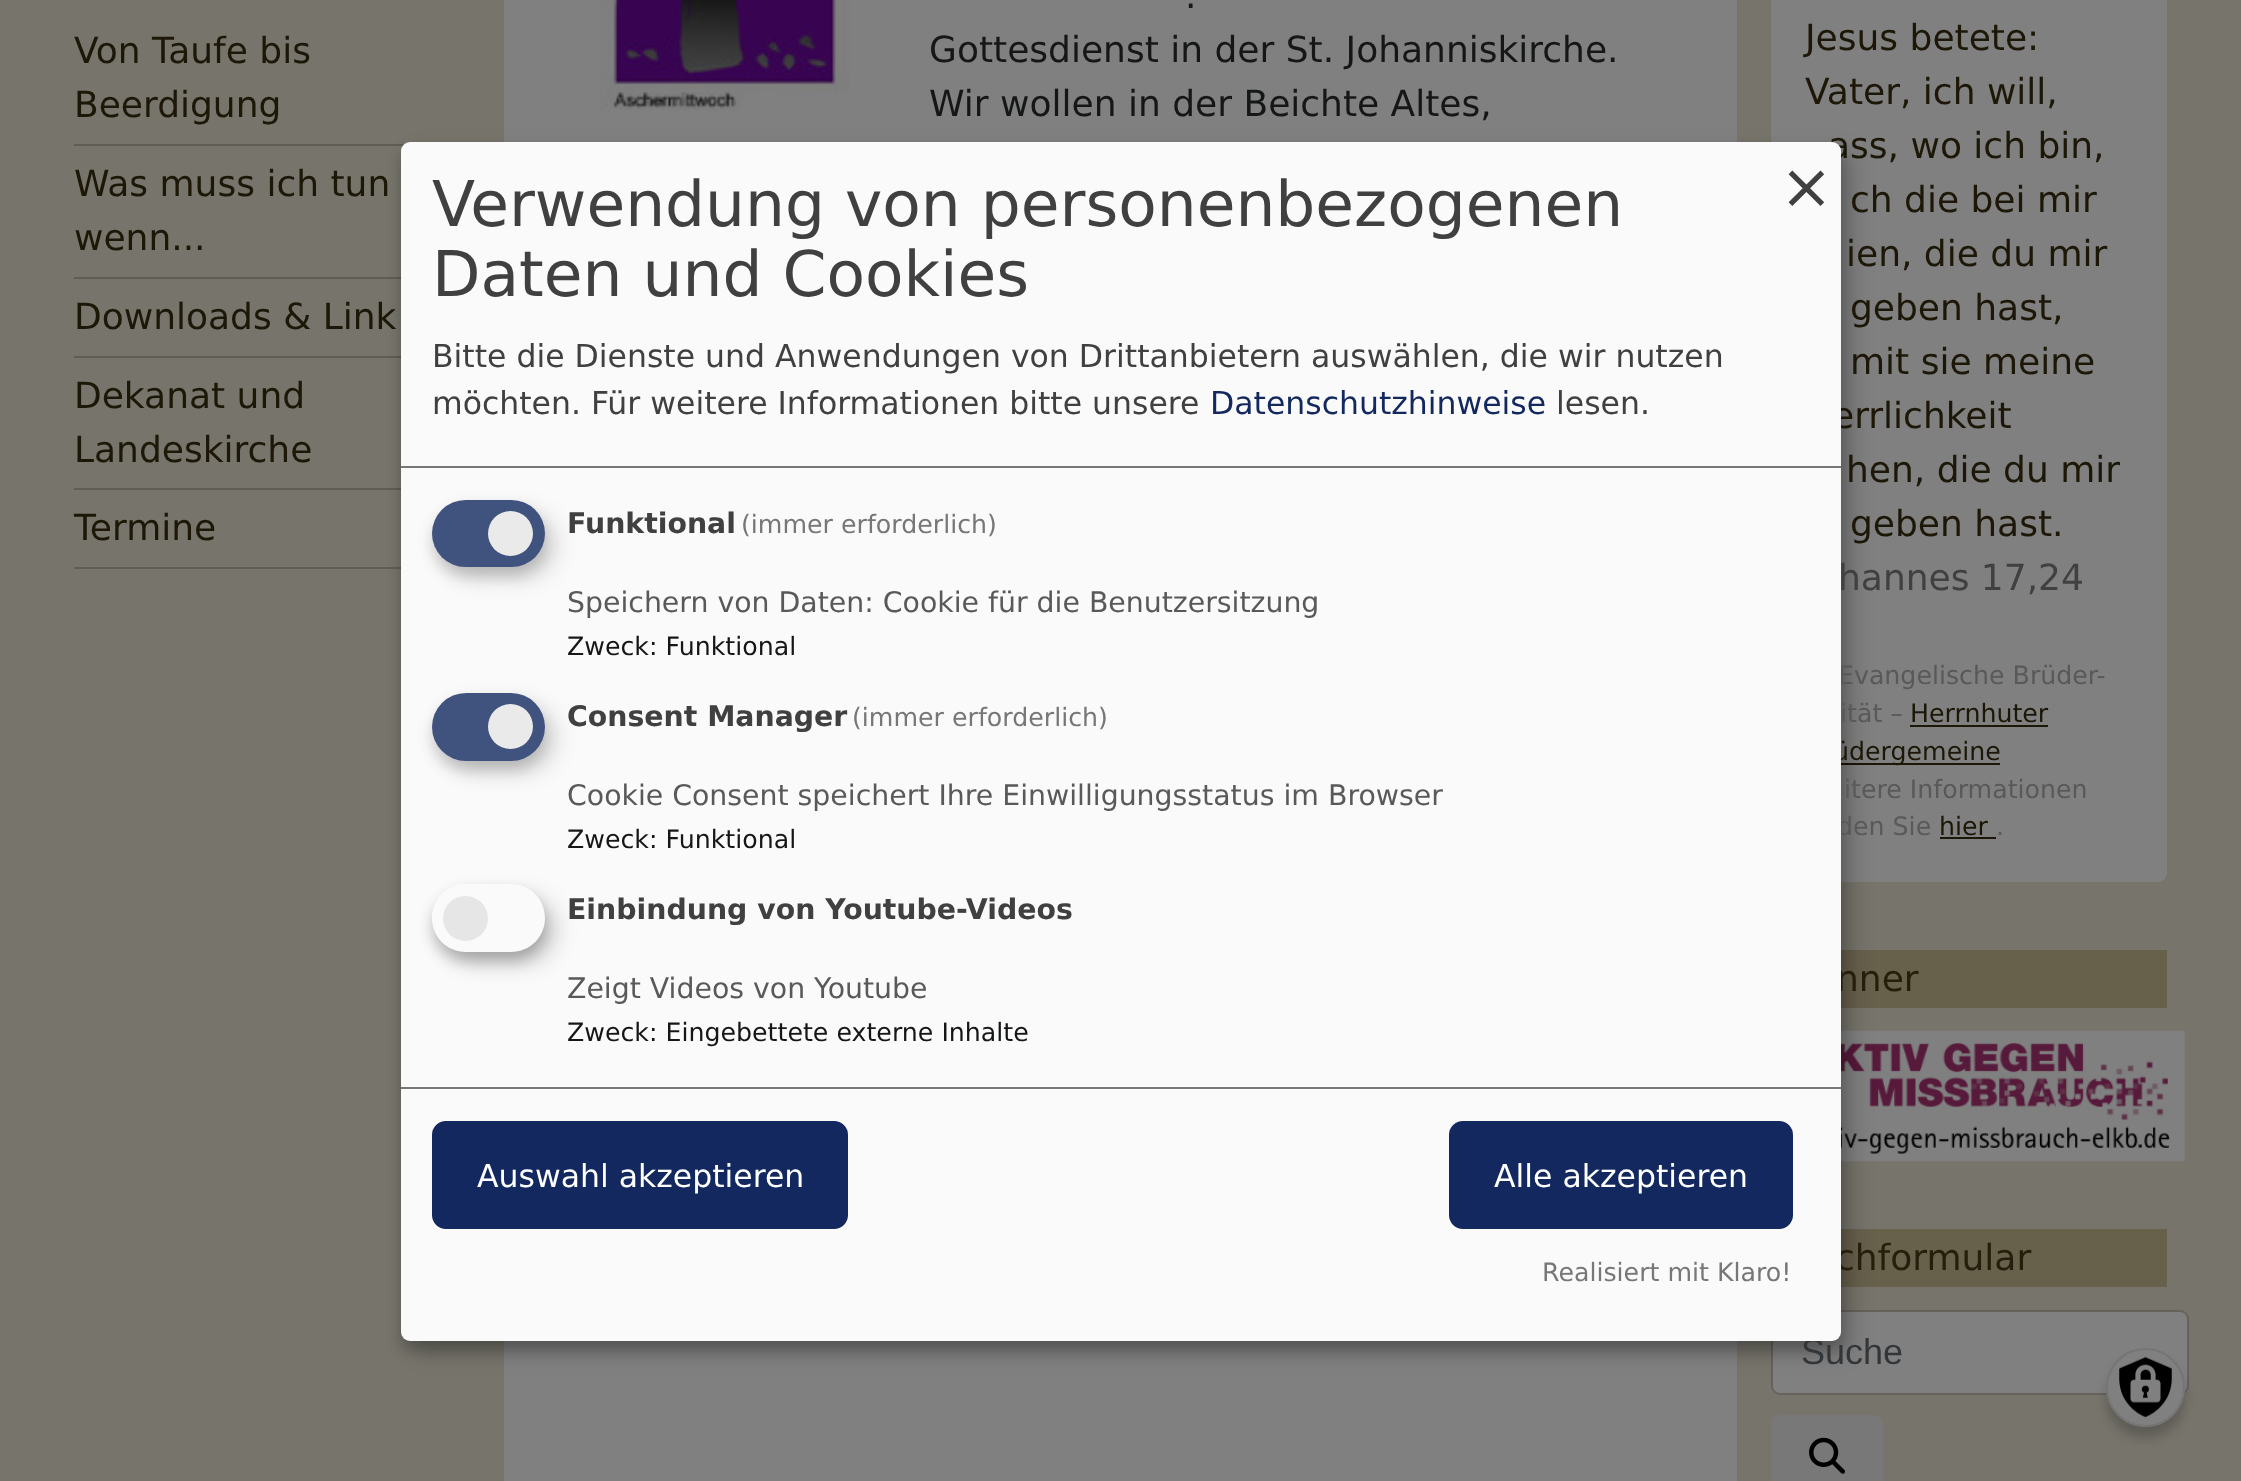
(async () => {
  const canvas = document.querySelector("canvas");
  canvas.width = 2241;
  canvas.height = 1481;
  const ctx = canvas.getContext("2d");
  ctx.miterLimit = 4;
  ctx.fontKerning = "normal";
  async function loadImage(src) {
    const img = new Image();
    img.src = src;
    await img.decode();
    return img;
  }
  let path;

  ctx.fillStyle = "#76746b";
  ctx.fillRect(0, 0, 2241, 1481);
  for (const [x, y, w, h, color] of [
    [74, 144, 331, 2, "#5f5d55"],
    [74, 277, 327, 2, "#5f5d55"],
    [74, 356, 327, 2, "#5f5d55"],
    [74, 488, 327, 2, "#5f5d55"],
    [74, 567, 327, 2, "#5f5d55"],
    [504, 0, 1233, 1481, "#808080"],
  ]) {
    ctx.fillStyle = color;
    ctx.fillRect(x, y, w, h);
  }
  ctx.drawImage(await loadImage("img/1.png"), 599, 0, 251, 111);
  ctx.beginPath();
  ctx.roundRect(1771, -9, 396, 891, 9);
  ctx.fill();
  for (const [x, y, w, h, color] of [
    [1910, 725, 138, 2, "#1c1707"],
    [1841, 763, 159, 2, "#1c1707"],
    [1940, 837, 56, 2, "#1c1707"],
    [1841, 950, 326, 58, "#67614c"],
  ]) {
    ctx.fillStyle = color;
    ctx.fillRect(x, y, w, h);
  }
  ctx.drawImage(await loadImage("img/2.png"), 1841, 1030, 344, 132);
  ctx.fillRect(1841, 1229, 326, 58);
  ctx.fillStyle = "#808080";
  ctx.beginPath();
  ctx.roundRect(1773, 1312, 414, 81, 7);
  ctx.fill();
  ctx.beginPath();
  ctx.roundRect(1772, 1311, 416, 83, 8);
  ctx.strokeStyle = "rgba(0, 0, 0, 0.15)";
  ctx.lineWidth = 2;
  ctx.stroke();
  ctx.fillStyle = "#787878";
  ctx.beginPath();
  ctx.roundRect(1771, 1415, 112, 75, 9);
  ctx.fill();
  ctx.drawImage(await loadImage("img/3.png"), 1809, 1437, 36, 37);
  ctx.fillStyle = "rgba(0, 0, 0, 0.19)";
  ctx.filter = "blur(11px)";
  ctx.beginPath();
  ctx.roundRect(412, 153, 1440, 1199, 9);
  ctx.fill();
  ctx.filter = "none";
  ctx.fillStyle = "rgba(0, 0, 0, 0.2)";
  ctx.filter = "blur(7px)";
  ctx.beginPath();
  ctx.roundRect(401, 151, 1440, 1199, 9);
  ctx.fill();
  ctx.filter = "none";
  ctx.filter = "blur(5.5px)";
  ctx.beginPath();
  ctx.roundRect(2106, 1359, 79, 79, 39.5);
  ctx.fill();
  ctx.filter = "none";
  ctx.fillStyle = "#808080";
  ctx.beginPath();
  ctx.arc(2145.5, 1387.5, 39.5, 0, Math.PI * 2);
  ctx.fill();
  ctx.drawImage(await loadImage("img/4.png"), 2119, 1356, 53, 62);
  ctx.beginPath();
  ctx.arc(2145.5, 1387.5, 38.5, 0, Math.PI * 2);
  ctx.strokeStyle = "#757575";
  ctx.stroke();
  ctx.font = "36px DejaVu Sans";
  ctx.fillStyle = "#1c1707";
  for (const [text, x, y] of [
    ["Von Taufe bis", 74, 63],
    ["Beerdigung", 74, 117],
    ["Was muss ich tun", 74, 196],
    ["wenn...", 74, 250],
    ["Downloads & Link", 74, 329],
    ["Dekanat und", 74, 408],
    ["Landeskirche", 74, 462],
    ["Termine", 74, 540],
  ]) {
    ctx.fillText(text, x, y);
  }
  ctx.fillStyle = "#151616";
  for (const [text, x, y] of [
    [".", 1185, 8],
    ["Gottesdienst in der St. Johanniskirche.", 929, 62],
    ["Wir wollen in der Beichte Altes,", 929, 116],
  ]) {
    ctx.fillText(text, x, y);
  }
  ctx.fillStyle = "#1c1707";
  for (const [text, x, y] of [
    ["Jesus betete:", 1805, 50],
    ["Vater, ich will,", 1805, 104],
    ["ass, wo ich bin,", 1828, 158],
    ["ch die bei mir", 1850, 212],
    ["ien, die du mir", 1846, 266],
    ["geben hast,", 1850, 320],
    ["mit sie meine", 1850, 374],
    ["errlichkeit", 1832, 428],
    ["hen, die du mir", 1846, 482],
    ["geben hast.", 1850, 536],
  ]) {
    ctx.fillText(text, x, y);
  }
  ctx.fillStyle = "#404040";
  ctx.fillText("hannes 17,24", 1838, 590);
  ctx.font = "25.25px DejaVu Sans";
  ctx.fillStyle = "#595959";
  ctx.fillText("Evangelische Brüder-", 1838, 684);
  ctx.fillText("ität –", 1840, 722);
  ctx.fillStyle = "#1c1707";
  ctx.fillText("Herrnhuter", 1910, 722);
  ctx.fillText("üdergemeine", 1833, 760);
  ctx.fillStyle = "#595959";
  ctx.fillText("itere Informationen", 1844, 798);
  ctx.fillText("den Sie", 1837, 835);
  ctx.fillStyle = "#1c1707";
  ctx.fillText("hier", 1939, 835);
  ctx.fillStyle = "#595959";
  ctx.fillText(".", 1996, 835);
  ctx.font = "36px DejaVu Sans";
  ctx.fillStyle = "#241e0b";
  ctx.fillText("nner", 1836, 991);
  ctx.fillText("chformular", 1835, 1270);
  ctx.font = "36px Liberation Sans";
  ctx.fillStyle = "#323639";
  ctx.fillText("Suche", 1801, 1364);
  ctx.fillStyle = "#fafafa";
  ctx.beginPath();
  ctx.roundRect(401, 142, 1440, 1199, 9);
  ctx.fill();
  ctx.fillStyle = "#777777";
  ctx.fillRect(401, 466, 1440, 2);
  ctx.font = "63px DejaVu Sans";
  ctx.fillStyle = "#404040";
  ctx.fillText("Verwendung von personenbezogenen", 432, 226);
  ctx.fillText("Daten und Cookies", 432, 296);
  ctx.font = "31.5px DejaVu Sans";
  ctx.fillText("Bitte die Dienste und Anwendungen von Drittanbietern auswählen, die wir nutzen", 432, 367);
  ctx.fillText("möchten. Für weitere Informationen bitte unsere", 432, 414);
  ctx.fillStyle = "#12285f";
  ctx.fillText("Datenschutzhinweise", 1210, 414);
  ctx.fillStyle = "#404040";
  ctx.fillText("lesen.", 1556, 414);
  ctx.font = "63px DejaVu Sans";
  ctx.fillText("×", 1780, 208);
  ctx.fillStyle = "rgba(0, 0, 0, 0.15)";
  ctx.filter = "blur(11px)";
  ctx.beginPath();
  ctx.roundRect(443, 511, 113, 67, 33.5);
  ctx.fill();
  ctx.filter = "none";
  ctx.fillStyle = "rgba(50, 50, 50, 0.2)";
  ctx.filter = "blur(7px)";
  ctx.beginPath();
  ctx.roundRect(432, 509, 113, 67, 33.5);
  ctx.fill();
  ctx.filter = "none";
  ctx.fillStyle = "#40527e";
  ctx.beginPath();
  ctx.roundRect(432, 500, 113, 67, 33.5);
  ctx.fill();
  ctx.fillStyle = "#eaeaea";
  ctx.beginPath();
  ctx.arc(510.5, 533.5, 22.5, 0, Math.PI * 2);
  ctx.fill();
  ctx.font = "bold 28.35px DejaVu Sans";
  ctx.fillStyle = "#404040";
  ctx.fillText("Funktional", 567, 533);
  ctx.font = "25.25px DejaVu Sans";
  ctx.fillStyle = "#777777";
  ctx.fillText("(immer erforderlich)", 741, 533);
  ctx.font = "28.35px DejaVu Sans";
  ctx.fillStyle = "#595959";
  ctx.fillText("Speichern von Daten: Cookie für die Benutzersitzung", 567, 612);
  ctx.font = "25.25px DejaVu Sans";
  ctx.fillStyle = "#151616";
  ctx.fillText("Zweck: Funktional", 567, 655);
  ctx.fillStyle = "rgba(0, 0, 0, 0.15)";
  ctx.filter = "blur(11px)";
  ctx.beginPath();
  ctx.roundRect(443, 704, 113, 68, 34);
  ctx.fill();
  ctx.filter = "none";
  ctx.fillStyle = "rgba(50, 50, 50, 0.2)";
  ctx.filter = "blur(7px)";
  ctx.beginPath();
  ctx.roundRect(432, 702, 113, 68, 34);
  ctx.fill();
  ctx.filter = "none";
  ctx.fillStyle = "#40527e";
  ctx.beginPath();
  ctx.roundRect(432, 693, 113, 68, 34);
  ctx.fill();
  ctx.fillStyle = "#eaeaea";
  ctx.beginPath();
  ctx.arc(510.5, 726.5, 22.5, 0, Math.PI * 2);
  ctx.fill();
  ctx.font = "bold 28.35px DejaVu Sans";
  ctx.fillStyle = "#404040";
  ctx.fillText("Consent Manager", 567, 726);
  ctx.font = "25.25px DejaVu Sans";
  ctx.fillStyle = "#777777";
  ctx.fillText("(immer erforderlich)", 852, 726);
  ctx.font = "28.35px DejaVu Sans";
  ctx.fillStyle = "#595959";
  ctx.fillText("Cookie Consent speichert Ihre Einwilligungsstatus im Browser", 567, 805);
  ctx.font = "25.25px DejaVu Sans";
  ctx.fillStyle = "#151616";
  ctx.fillText("Zweck: Funktional", 567, 848);
  ctx.save();
  path = new Path2D("M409 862H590V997H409ZM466 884H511C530 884 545 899 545 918C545 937 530 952 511 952H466C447 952 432 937 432 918C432 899 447 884 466 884Z");
  ctx.clip(path, "evenodd");
  ctx.fillStyle = "rgba(0, 0, 0, 0.19)";
  ctx.filter = "blur(11px)";
  ctx.beginPath();
  ctx.roundRect(443, 896, 113, 67, 33.5);
  ctx.fill();
  ctx.filter = "none";
  ctx.restore();
  ctx.save();
  path = new Path2D("M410 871H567V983H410ZM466 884H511C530 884 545 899 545 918C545 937 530 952 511 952H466C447 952 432 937 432 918C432 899 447 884 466 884Z");
  ctx.clip(path, "evenodd");
  ctx.fillStyle = "rgba(0, 0, 0, 0.2)";
  ctx.filter = "blur(7px)";
  ctx.beginPath();
  ctx.roundRect(432, 893, 113, 68, 34);
  ctx.fill();
  ctx.filter = "none";
  ctx.restore();
  ctx.fillStyle = "#e6e6e6";
  ctx.beginPath();
  ctx.arc(465.5, 918.5, 22.5, 0, Math.PI * 2);
  ctx.fill();
  ctx.font = "bold 28.35px DejaVu Sans";
  ctx.fillStyle = "#404040";
  ctx.fillText("Einbindung von Youtube-Videos", 567, 919);
  ctx.font = "28.35px DejaVu Sans";
  ctx.fillStyle = "#595959";
  ctx.fillText("Zeigt Videos von Youtube", 567, 998);
  ctx.font = "25.25px DejaVu Sans";
  ctx.fillStyle = "#151616";
  ctx.fillText("Zweck: Eingebettete externe Inhalte", 567, 1041);
  ctx.fillStyle = "#777777";
  ctx.fillRect(401, 1087, 1440, 2);
  ctx.fillStyle = "#12285f";
  ctx.beginPath();
  ctx.roundRect(435.5, 1124.5, 409, 101, 10.5);
  ctx.fill();
  ctx.strokeStyle = "#12285f";
  ctx.lineWidth = 7;
  ctx.stroke();
  ctx.font = "31.5px DejaVu Sans";
  ctx.fillStyle = "#ffffff";
  ctx.fillText("Auswahl akzeptieren", 477, 1187);
  ctx.fillStyle = "#12285f";
  ctx.beginPath();
  ctx.roundRect(1452.5, 1124.5, 337, 101, 10.5);
  ctx.fill();
  ctx.stroke();
  ctx.fillStyle = "#ffffff";
  ctx.fillText("Alle akzeptieren", 1494, 1187);
  ctx.font = "25.25px DejaVu Sans";
  ctx.fillStyle = "#777777";
  ctx.fillText("Realisiert mit Klaro!", 1542, 1281);
})();
